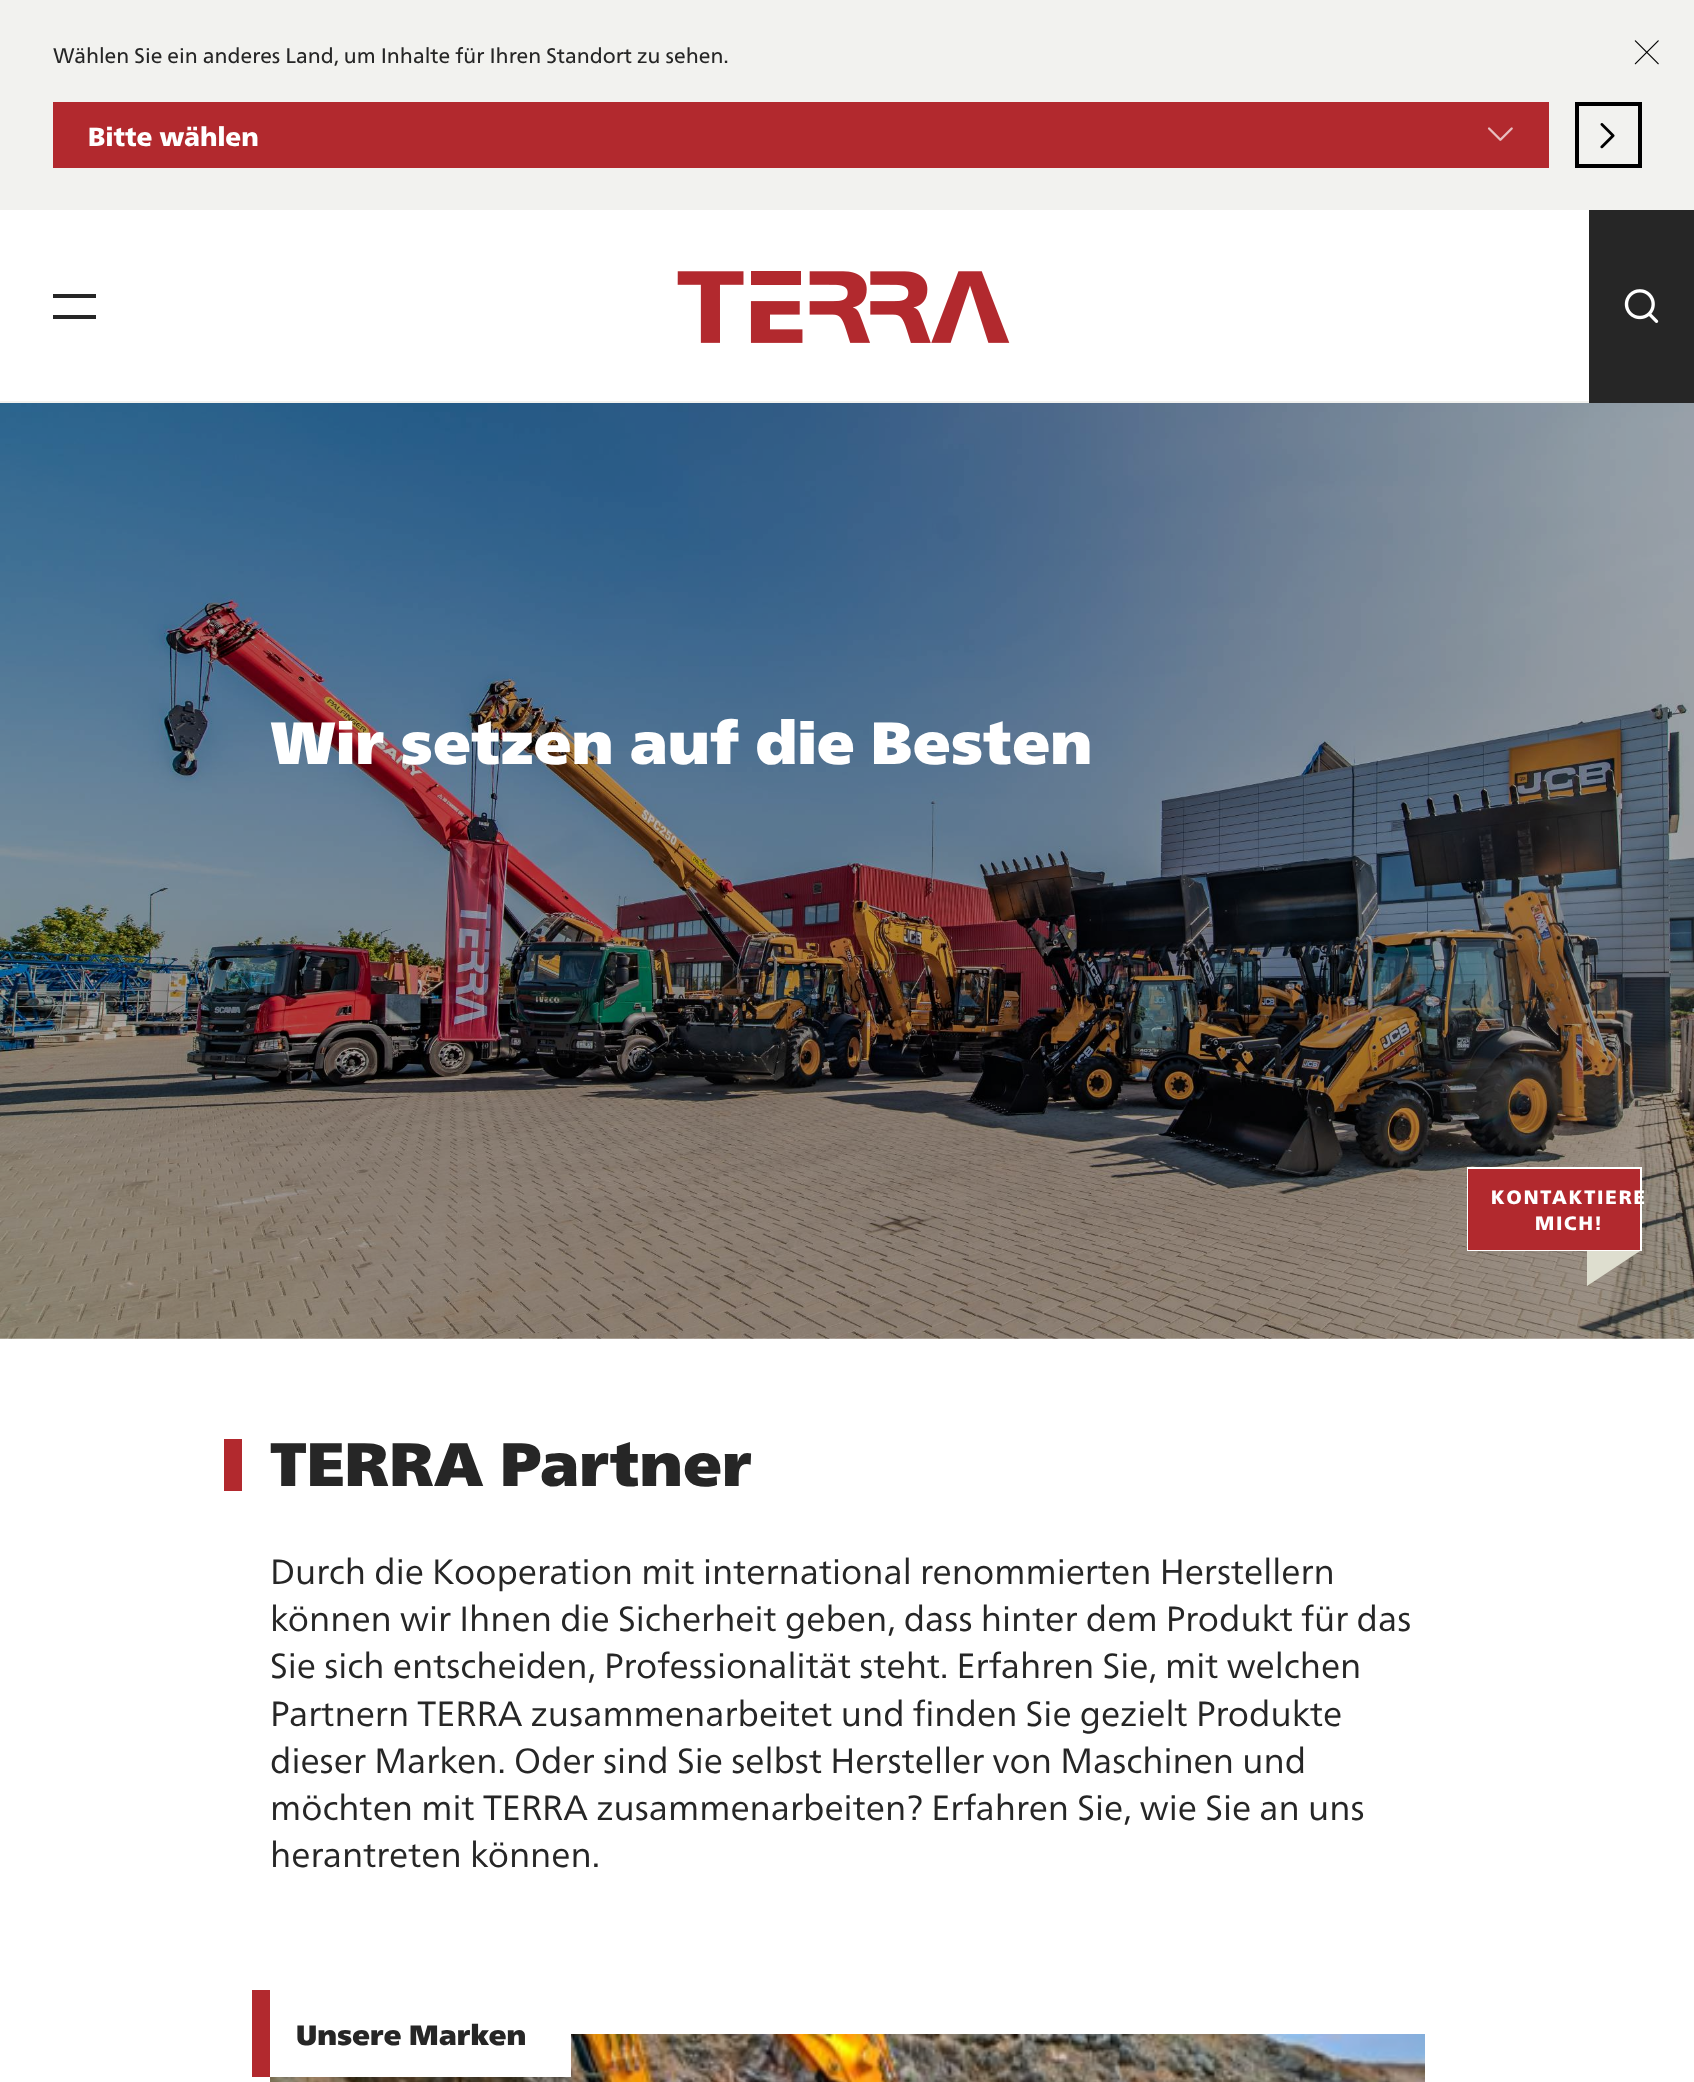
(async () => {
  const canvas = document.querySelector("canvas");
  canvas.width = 1694;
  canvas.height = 2082;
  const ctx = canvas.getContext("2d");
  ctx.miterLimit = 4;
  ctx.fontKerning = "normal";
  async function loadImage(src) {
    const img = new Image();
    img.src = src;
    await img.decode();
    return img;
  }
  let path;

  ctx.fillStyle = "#ffffff";
  ctx.fillRect(0, 0, 1694, 2082);
  ctx.fillStyle = "#f2f2ef";
  ctx.fillRect(0, 0, 1694, 210);
  ctx.drawImage(await loadImage("img/1.png"), 1634, 40, 25, 25);
  ctx.fillStyle = "#b2292e";
  ctx.fillRect(53, 102, 1496, 66);
  ctx.drawImage(await loadImage("img/2.png"), 1487, 127, 26, 14);
  ctx.strokeStyle = "#000000";
  ctx.lineWidth = 4;
  ctx.strokeRect(1577, 104, 63, 62);
  ctx.drawImage(await loadImage("img/3.png"), 1600, 123, 15, 26);
  for (const [x, y, w, h, color] of [
    [0, 401, 1589, 2, "#f2f2ef"],
    [53, 294, 43, 4, "#262626"],
    [53, 315, 43, 4, "#262626"],
  ]) {
    ctx.fillStyle = color;
    ctx.fillRect(x, y, w, h);
  }
  ctx.drawImage(await loadImage("img/4.png"), 677, 271, 333, 72);
  ctx.fillRect(1589, 210, 105, 193);
  ctx.drawImage(await loadImage("img/5.png"), 1624, 289, 35, 34);
  ctx.drawImage(await loadImage("img/6.png"), 0, 403, 1694, 936);
  ctx.strokeStyle = "#ffffff";
  ctx.lineWidth = 2;
  ctx.strokeRect(1468, 1168, 173, 82);
  ctx.fillStyle = "#b2292e";
  ctx.fillRect(1468, 1169, 172, 81);
  ctx.fillStyle = "#dedecf";
  path = new Path2D("M1587 1251H1640L1587 1286Z");
  ctx.fill(path);
  ctx.fillStyle = "#b2292e";
  ctx.fillRect(224, 1439, 18, 52);
  ctx.drawImage(await loadImage("img/7.png"), 270, 2034, 1155, 48);
  ctx.fillStyle = "#ffffff";
  ctx.fillRect(270, 2034, 301, 43);
  ctx.fillStyle = "#b2292e";
  ctx.fillRect(252, 1990, 18, 87);
  ctx.font = "21px 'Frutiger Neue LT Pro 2'";
  ctx.fillStyle = "#262626";
  ctx.fillText("Wählen Sie ein anderes Land, um Inhalte für Ihren Standort zu sehen.", 53, 63);
  ctx.font = "900 26.25px 'Frutiger Neue LT Pro 2'";
  ctx.fillStyle = "#ffffff";
  ctx.fillText("Bitte wählen", 88, 146);
  ctx.font = "900 59.5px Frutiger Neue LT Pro";
  ctx.fillText("Wir setzen auf die Besten", 270, 764);
  ctx.letterSpacing = "2px";
  ctx.font = "900 19.25px 'Frutiger Neue LT Pro 2'";
  ctx.fillText("KONTAKTIERE", 1491, 1204);
  ctx.fillText("MICH!", 1535, 1230);
  ctx.letterSpacing = "0px";
  ctx.font = "900 61.25px Frutiger Neue LT Pro";
  ctx.fillStyle = "#262626";
  ctx.fillText("TERRA Partner", 270, 1486);
  ctx.font = "35px Frutiger Neue LT Pro";
  for (const [text, x, y] of [
    ["Durch die Kooperation mit international renommierten Herstellern", 270, 1584],
    ["können wir Ihnen die Sicherheit geben, dass hinter dem Produkt für das", 270, 1631],
    ["Sie sich entscheiden, Professionalität steht. Erfahren Sie, mit welchen", 270, 1678],
    ["Partnern TERRA zusammenarbeitet und finden Sie gezielt Produkte", 270, 1726],
    ["dieser Marken. Oder sind Sie selbst Hersteller von Maschinen und", 270, 1773],
    ["möchten mit TERRA zusammenarbeiten? Erfahren Sie, wie Sie an uns", 270, 1820],
    ["herantreten können.", 270, 1867],
  ]) {
    ctx.fillText(text, x, y);
  }
  ctx.font = "900 28px Frutiger Neue LT Pro";
  ctx.fillText("Unsere Marken", 296, 2045);
})();
